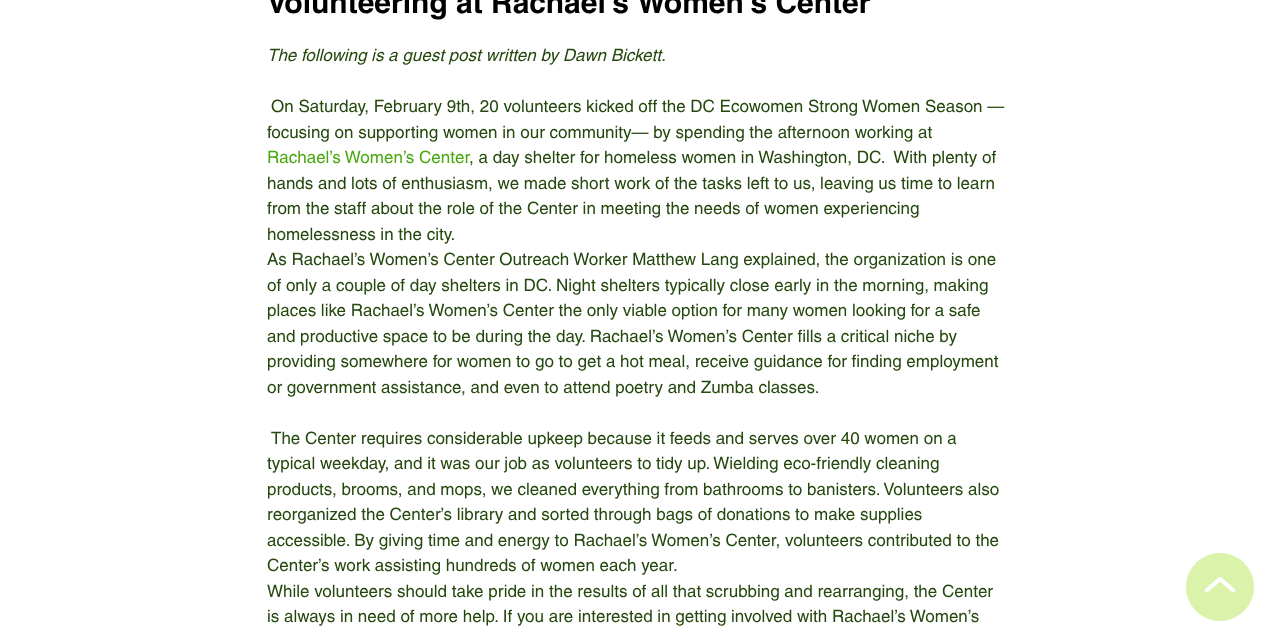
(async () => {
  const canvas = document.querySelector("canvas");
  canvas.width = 1273;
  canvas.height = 640;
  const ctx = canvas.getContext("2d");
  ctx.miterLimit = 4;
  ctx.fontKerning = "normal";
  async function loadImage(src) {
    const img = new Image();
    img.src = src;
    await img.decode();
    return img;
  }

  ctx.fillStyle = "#ffffff";
  ctx.fillRect(0, 0, 1273, 640);
  ctx.drawImage(await loadImage("img/1.png"), 1186, 553, 68, 68);
  ctx.font = "bold 30px helvetica";
  ctx.fillStyle = "#000000";
  ctx.fillText("Volunteering at Rachael’s Women’s Center", 267, 13);
  ctx.font = "italic 17px helvetica";
  ctx.fillStyle = "#25480e";
  ctx.fillText("The following is a guest post written by Dawn Bickett.", 267, 61);
  ctx.font = "17px helvetica";
  ctx.fillText("On Saturday, February 9th, 20 volunteers kicked off the DC Ecowomen Strong Women Season —", 271, 112);
  ctx.fillText("focusing on supporting women in our community— by spending the afternoon working at", 267, 138);
  ctx.fillStyle = "#4aa810";
  ctx.fillText("Rachael’s Women’s Center", 267, 163);
  ctx.fillStyle = "#25480e";
  for (const [text, x, y] of [
    [", a day shelter for homeless women in Washington, DC.  With plenty of", 469, 163],
    ["hands and lots of enthusiasm, we made short work of the tasks left to us, leaving us time to learn", 267, 189],
    ["from the staff about the role of the Center in meeting the needs of women experiencing", 267, 214],
    ["homelessness in the city.", 267, 240],
    ["As Rachael’s Women’s Center Outreach Worker Matthew Lang explained, the organization is one", 267, 265],
    ["of only a couple of day shelters in DC. Night shelters typically close early in the morning, making", 267, 291],
    ["places like Rachael’s Women’s Center the only viable option for many women looking for a safe", 267, 316],
    ["and productive space to be during the day. Rachael’s Women’s Center fills a critical niche by", 267, 342],
    ["providing somewhere for women to go to get a hot meal, receive guidance for finding employment", 267, 367],
    ["or government assistance, and even to attend poetry and Zumba classes.", 267, 393],
    ["The Center requires considerable upkeep because it feeds and serves over 40 women on a", 271, 444],
    ["typical weekday, and it was our job as volunteers to tidy up. Wielding eco-friendly cleaning", 267, 469],
    ["products, brooms, and mops, we cleaned everything from bathrooms to banisters. Volunteers also", 267, 495],
    ["reorganized the Center’s library and sorted through bags of donations to make supplies", 267, 520],
    ["accessible. By giving time and energy to Rachael’s Women’s Center, volunteers contributed to the", 267, 546],
    ["Center’s work assisting hundreds of women each year.", 267, 571],
    ["While volunteers should take pride in the results of all that scrubbing and rearranging, the Center", 267, 597],
    ["is always in need of more help. If you are interested in getting involved with Rachael’s Women’s", 267, 622],
  ]) {
    ctx.fillText(text, x, y);
  }
})();
